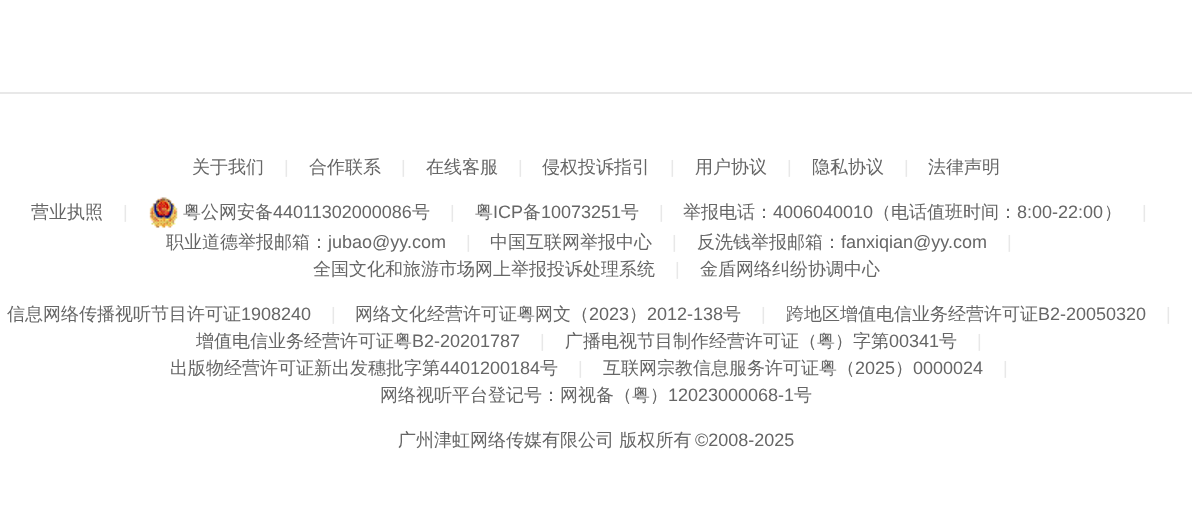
(async () => {
  const canvas = document.querySelector("canvas");
  canvas.width = 1192;
  canvas.height = 531;
  const ctx = canvas.getContext("2d");
  ctx.miterLimit = 4;
  ctx.fontKerning = "normal";
  async function loadImage(src) {
    const img = new Image();
    img.src = src;
    await img.decode();
    return img;
  }

  ctx.fillStyle = "#ffffff";
  ctx.fillRect(0, 0, 1192, 531);
  ctx.fillStyle = "#e8e8e8";
  ctx.fillRect(0, 92, 1192, 2);
  ctx.drawImage(await loadImage("img/1.png"), 149, 197, 29, 31);
  ctx.font = "500 18px WenQuanYi Zen Hei";
  ctx.fillStyle = "#666666";
  ctx.fillText("关于我们", 192, 173);
  ctx.font = "18px Liberation Sans";
  ctx.fillStyle = "#e8e8e8";
  ctx.fillText("|", 284, 173);
  ctx.font = "500 18px WenQuanYi Zen Hei";
  ctx.fillStyle = "#666666";
  ctx.fillText("合作联系", 309, 173);
  ctx.font = "18px Liberation Sans";
  ctx.fillStyle = "#e8e8e8";
  ctx.fillText("|", 401, 173);
  ctx.font = "500 18px WenQuanYi Zen Hei";
  ctx.fillStyle = "#666666";
  ctx.fillText("在线客服", 426, 173);
  ctx.font = "18px Liberation Sans";
  ctx.fillStyle = "#e8e8e8";
  ctx.fillText("|", 518, 173);
  ctx.font = "500 18px WenQuanYi Zen Hei";
  ctx.fillStyle = "#666666";
  ctx.fillText("侵权投诉指引", 542, 173);
  ctx.font = "18px Liberation Sans";
  ctx.fillStyle = "#e8e8e8";
  ctx.fillText("|", 670, 173);
  ctx.font = "500 18px WenQuanYi Zen Hei";
  ctx.fillStyle = "#666666";
  ctx.fillText("用户协议", 695, 173);
  ctx.font = "18px Liberation Sans";
  ctx.fillStyle = "#e8e8e8";
  ctx.fillText("|", 787, 173);
  ctx.font = "500 18px WenQuanYi Zen Hei";
  ctx.fillStyle = "#666666";
  ctx.fillText("隐私协议", 812, 173);
  ctx.font = "18px Liberation Sans";
  ctx.fillStyle = "#e8e8e8";
  ctx.fillText("|", 904, 173);
  ctx.font = "500 18px WenQuanYi Zen Hei";
  ctx.fillStyle = "#666666";
  ctx.fillText("法律声明", 928, 173);
  ctx.fillText("营业执照", 31, 218);
  ctx.font = "18px Liberation Sans";
  ctx.fillStyle = "#e8e8e8";
  ctx.fillText("|", 123, 218);
  ctx.font = "500 18px WenQuanYi Zen Hei";
  ctx.fillStyle = "#666666";
  ctx.fillText("粤公网安备", 183, 218);
  ctx.font = "18px Liberation Sans";
  ctx.fillText("44011302000086", 273, 218);
  ctx.font = "500 18px WenQuanYi Zen Hei";
  ctx.fillText("号", 412, 218);
  ctx.font = "18px Liberation Sans";
  ctx.fillStyle = "#e8e8e8";
  ctx.fillText("|", 450, 218);
  ctx.font = "500 18px WenQuanYi Zen Hei";
  ctx.fillStyle = "#666666";
  ctx.fillText("粤", 475, 218);
  ctx.font = "18px Liberation Sans";
  ctx.fillText("ICP", 493, 218);
  ctx.font = "500 18px WenQuanYi Zen Hei";
  ctx.fillText("备", 523, 218);
  ctx.font = "18px Liberation Sans";
  ctx.fillText("10073251", 541, 218);
  ctx.font = "500 18px WenQuanYi Zen Hei";
  ctx.fillText("号", 621, 218);
  ctx.font = "18px Liberation Sans";
  ctx.fillStyle = "#e8e8e8";
  ctx.fillText("|", 659, 218);
  ctx.font = "500 18px WenQuanYi Zen Hei";
  ctx.fillStyle = "#666666";
  ctx.fillText("举报电话：", 683, 218);
  ctx.font = "18px Liberation Sans";
  ctx.fillText("4006040010", 773, 218);
  ctx.font = "500 18px WenQuanYi Zen Hei";
  ctx.fillText("（电话值班时间：", 873, 218);
  ctx.font = "18px Liberation Sans";
  ctx.fillText("8:00-22:00", 1017, 218);
  ctx.font = "500 18px WenQuanYi Zen Hei";
  ctx.fillText("）", 1104, 218);
  ctx.font = "18px Liberation Sans";
  ctx.fillStyle = "#e8e8e8";
  ctx.fillText("|", 1142, 218);
  ctx.font = "500 18px WenQuanYi Zen Hei";
  ctx.fillStyle = "#666666";
  ctx.fillText("职业道德举报邮箱：", 166, 248);
  ctx.font = "18px Liberation Sans";
  ctx.fillText("jubao@yy.com", 328, 248);
  ctx.fillStyle = "#e8e8e8";
  ctx.fillText("|", 466, 248);
  ctx.font = "500 18px WenQuanYi Zen Hei";
  ctx.fillStyle = "#666666";
  ctx.fillText("中国互联网举报中心", 490, 248);
  ctx.font = "18px Liberation Sans";
  ctx.fillStyle = "#e8e8e8";
  ctx.fillText("|", 672, 248);
  ctx.font = "500 18px WenQuanYi Zen Hei";
  ctx.fillStyle = "#666666";
  ctx.fillText("反洗钱举报邮箱：", 697, 248);
  ctx.font = "18px Liberation Sans";
  ctx.fillText("fanxiqian@yy.com", 841, 248);
  ctx.fillStyle = "#e8e8e8";
  ctx.fillText("|", 1007, 248);
  ctx.font = "500 18px WenQuanYi Zen Hei";
  ctx.fillStyle = "#666666";
  ctx.fillText("全国文化和旅游市场网上举报投诉处理系统", 313, 275);
  ctx.font = "18px Liberation Sans";
  ctx.fillStyle = "#e8e8e8";
  ctx.fillText("|", 675, 275);
  ctx.font = "500 18px WenQuanYi Zen Hei";
  ctx.fillStyle = "#666666";
  ctx.fillText("金盾网络纠纷协调中心", 700, 275);
  ctx.fillText("信息网络传播视听节目许可证", 7, 320);
  ctx.font = "18px Liberation Sans";
  ctx.fillText("1908240", 241, 320);
  ctx.fillStyle = "#e8e8e8";
  ctx.fillText("|", 331, 320);
  ctx.font = "500 18px WenQuanYi Zen Hei";
  ctx.fillStyle = "#666666";
  ctx.fillText("网络文化经营许可证粤网文（", 355, 320);
  ctx.font = "18px Liberation Sans";
  ctx.fillText("2023", 589, 320);
  ctx.font = "500 18px WenQuanYi Zen Hei";
  ctx.fillText("）", 629, 320);
  ctx.font = "18px Liberation Sans";
  ctx.fillText("2012-138", 647, 320);
  ctx.font = "500 18px WenQuanYi Zen Hei";
  ctx.fillText("号", 723, 320);
  ctx.font = "18px Liberation Sans";
  ctx.fillStyle = "#e8e8e8";
  ctx.fillText("|", 761, 320);
  ctx.font = "500 18px WenQuanYi Zen Hei";
  ctx.fillStyle = "#666666";
  ctx.fillText("跨地区增值电信业务经营许可证", 786, 320);
  ctx.font = "18px Liberation Sans";
  ctx.fillText("B2-20050320", 1038, 320);
  ctx.fillStyle = "#e8e8e8";
  ctx.fillText("|", 1166, 320);
  ctx.font = "500 18px WenQuanYi Zen Hei";
  ctx.fillStyle = "#666666";
  ctx.fillText("增值电信业务经营许可证粤", 196, 347);
  ctx.font = "18px Liberation Sans";
  ctx.fillText("B2-20201787", 412, 347);
  ctx.fillStyle = "#e8e8e8";
  ctx.fillText("|", 540, 347);
  ctx.font = "500 18px WenQuanYi Zen Hei";
  ctx.fillStyle = "#666666";
  ctx.fillText("广播电视节目制作经营许可证（粤）字第", 565, 347);
  ctx.font = "18px Liberation Sans";
  ctx.fillText("00341", 889, 347);
  ctx.font = "500 18px WenQuanYi Zen Hei";
  ctx.fillText("号", 939, 347);
  ctx.font = "18px Liberation Sans";
  ctx.fillStyle = "#e8e8e8";
  ctx.fillText("|", 977, 347);
  ctx.font = "500 18px WenQuanYi Zen Hei";
  ctx.fillStyle = "#666666";
  ctx.fillText("出版物经营许可证新出发穗批字第", 170, 374);
  ctx.font = "18px Liberation Sans";
  ctx.fillText("4401200184", 440, 374);
  ctx.font = "500 18px WenQuanYi Zen Hei";
  ctx.fillText("号", 540, 374);
  ctx.font = "18px Liberation Sans";
  ctx.fillStyle = "#e8e8e8";
  ctx.fillText("|", 578, 374);
  ctx.font = "500 18px WenQuanYi Zen Hei";
  ctx.fillStyle = "#666666";
  ctx.fillText("互联网宗教信息服务许可证粤（", 603, 374);
  ctx.font = "18px Liberation Sans";
  ctx.fillText("2025", 855, 374);
  ctx.font = "500 18px WenQuanYi Zen Hei";
  ctx.fillText("）", 895, 374);
  ctx.font = "18px Liberation Sans";
  ctx.fillText("0000024", 913, 374);
  ctx.fillStyle = "#e8e8e8";
  ctx.fillText("|", 1003, 374);
  ctx.font = "500 18px WenQuanYi Zen Hei";
  ctx.fillStyle = "#666666";
  ctx.fillText("网络视听平台登记号：网视备（粤）", 380, 401);
  ctx.font = "18px Liberation Sans";
  ctx.fillText("12023000068-1", 668, 401);
  ctx.font = "500 18px WenQuanYi Zen Hei";
  ctx.fillText("号", 794, 401);
  ctx.fillText("广州津虹网络传媒有限公司 版权所有", 398, 446);
  ctx.font = "18px Liberation Sans";
  ctx.fillText("©2008-2025", 695, 446);
})();
